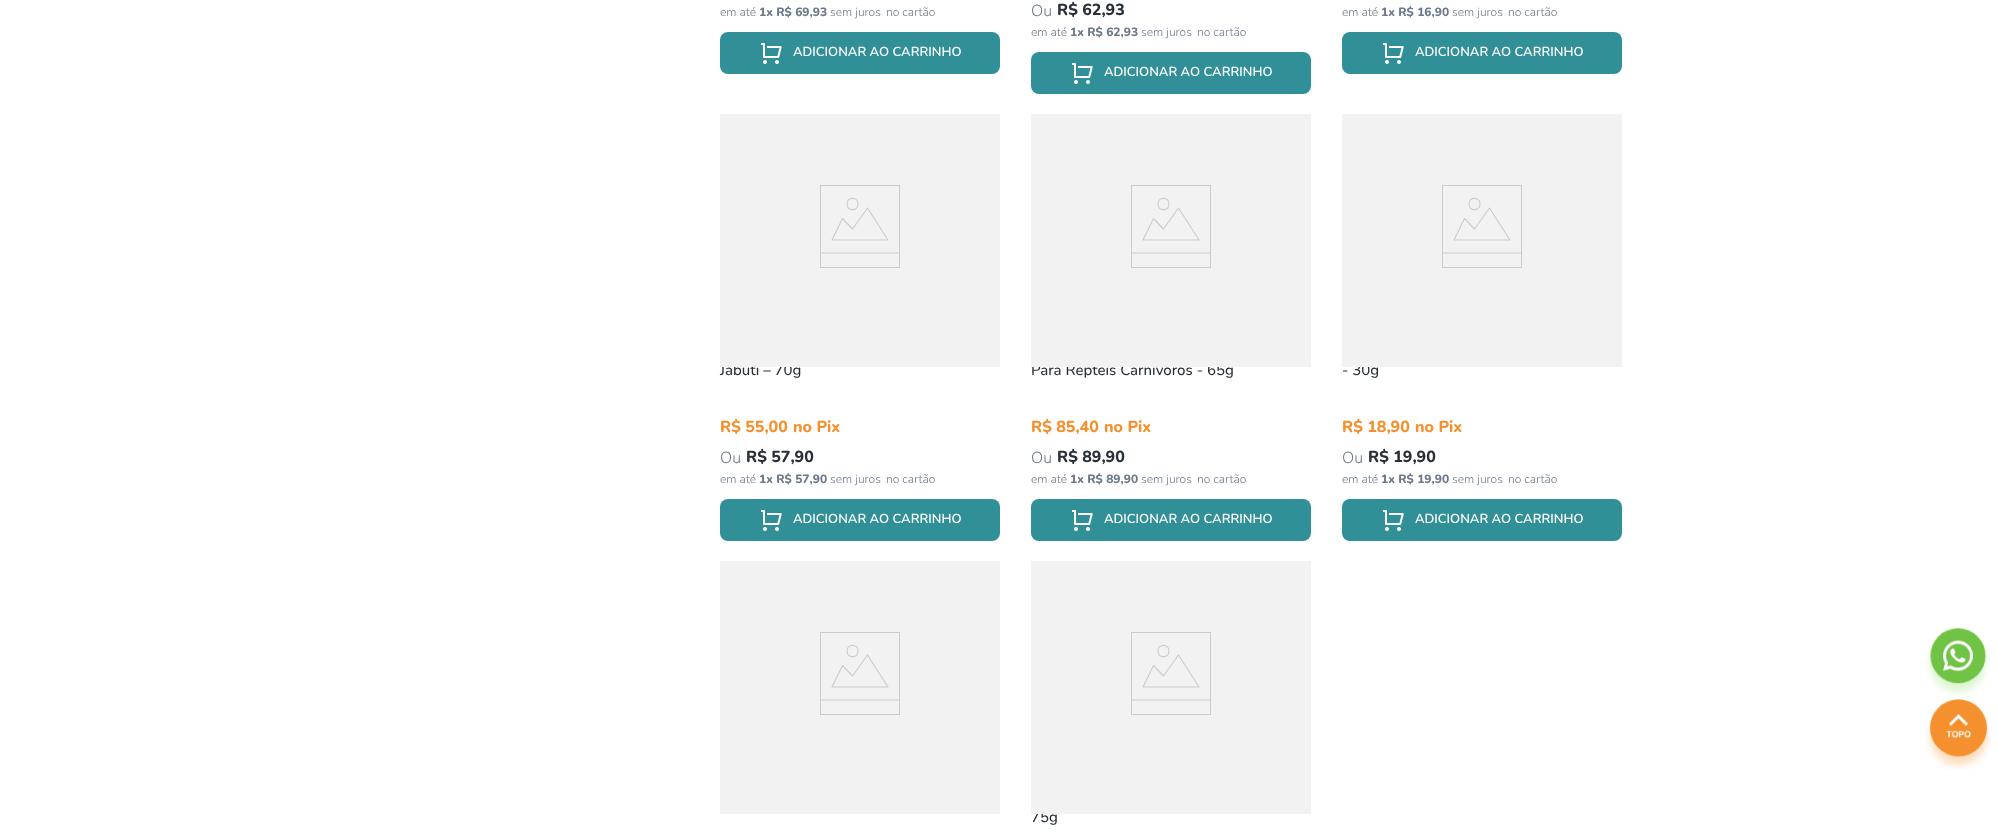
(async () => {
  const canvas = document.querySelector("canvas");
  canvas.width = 1998;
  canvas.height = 833;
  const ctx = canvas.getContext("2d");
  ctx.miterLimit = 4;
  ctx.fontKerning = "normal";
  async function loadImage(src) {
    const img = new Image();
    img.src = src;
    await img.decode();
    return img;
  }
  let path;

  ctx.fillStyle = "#ffffff";
  ctx.fillRect(0, 0, 1998, 833);
  ctx.fillStyle = "#318f98";
  ctx.beginPath();
  ctx.roundRect(720, 32, 280, 42, 8);
  ctx.fill();
  ctx.drawImage(await loadImage("img/1.png"), 761, 43, 21, 21);
  ctx.beginPath();
  ctx.roundRect(1031, 52, 280, 42, 8);
  ctx.fill();
  ctx.drawImage(await loadImage("img/1.png"), 1072, 63, 21, 21);
  ctx.beginPath();
  ctx.roundRect(1342, 32, 280, 42, 8);
  ctx.fill();
  ctx.drawImage(await loadImage("img/1.png"), 1383, 43, 21, 21);
  ctx.beginPath();
  ctx.roundRect(720, 499, 280, 42, 8);
  ctx.fill();
  ctx.drawImage(await loadImage("img/1.png"), 761, 510, 21, 21);
  ctx.beginPath();
  ctx.roundRect(1031, 499, 280, 42, 8);
  ctx.fill();
  ctx.drawImage(await loadImage("img/1.png"), 1072, 510, 21, 21);
  ctx.beginPath();
  ctx.roundRect(1342, 499, 280, 42, 8);
  ctx.fill();
  ctx.drawImage(await loadImage("img/1.png"), 1383, 510, 21, 21);
  ctx.fillStyle = "#f2f2f2";
  ctx.fillRect(720, 561, 280, 253);
  ctx.strokeStyle = "#cacbcc";
  ctx.strokeRect(820.5, 632.5, 79, 82);
  path = new Path2D("M832 687L842.5 665.5L852.5 676L867.5 655L888 687Z");
  ctx.lineWidth = 1.1;
  ctx.lineCap = "round";
  ctx.lineJoin = "round";
  ctx.stroke(path);
  path = new Path2D("M858 651C858 658.5 847 658.5 847 651C847 643.5 858 643.5 858 651Z");
  ctx.lineCap = "butt";
  ctx.lineJoin = "miter";
  ctx.stroke(path);
  path = new Path2D("M820.5 700H899.5");
  ctx.stroke(path);
  ctx.drawImage(await loadImage("img/2.png"), 1926, 628, 64, 68);
  ctx.drawImage(await loadImage("img/3.png"), 1925, 699, 67, 71);
  ctx.font = "300 12px Nunito";
  ctx.fillStyle = "#6b7989";
  ctx.fillText("em até", 720, 16);
  ctx.font = "800 12px Nunito";
  ctx.fillText("1x R$ 69,93", 759, 16);
  ctx.font = "300 12px Nunito";
  ctx.fillText("sem juros", 830, 16);
  ctx.fillText("no cartão", 886, 16);
  ctx.font = "600 13px Nunito";
  ctx.fillStyle = "#ffffff";
  ctx.fillText("ADICIONAR AO CARRINHO", 793, 56);
  ctx.font = "300 16px Nunito";
  ctx.fillStyle = "#6b7989";
  ctx.fillText("Ou", 1031, 16);
  ctx.font = "800 16px Nunito";
  ctx.fillStyle = "#2a3038";
  ctx.fillText("R$ 62,93", 1057, 15);
  ctx.font = "300 12px Nunito";
  ctx.fillStyle = "#6b7989";
  ctx.fillText("em até", 1031, 36);
  ctx.font = "800 12px Nunito";
  ctx.fillText("1x R$ 62,93", 1070, 36);
  ctx.font = "300 12px Nunito";
  ctx.fillText("sem juros", 1141, 36);
  ctx.fillText("no cartão", 1197, 36);
  ctx.font = "600 13px Nunito";
  ctx.fillStyle = "#ffffff";
  ctx.fillText("ADICIONAR AO CARRINHO", 1104, 76);
  ctx.font = "300 12px Nunito";
  ctx.fillStyle = "#6b7989";
  ctx.fillText("em até", 1342, 16);
  ctx.font = "800 12px Nunito";
  ctx.fillText("1x R$ 16,90", 1381, 16);
  ctx.font = "300 12px Nunito";
  ctx.fillText("sem juros", 1452, 16);
  ctx.fillText("no cartão", 1508, 16);
  ctx.font = "600 13px Nunito";
  ctx.fillStyle = "#ffffff";
  ctx.fillText("ADICIONAR AO CARRINHO", 1415, 56);
  ctx.font = "500 15px Nunito";
  ctx.fillStyle = "#2a3038";
  ctx.fillText("Jabuti – 70g", 720, 375);
  ctx.fillStyle = "#f2f2f2";
  ctx.fillRect(720, 114, 280, 253);
  ctx.lineWidth = 1;
  ctx.strokeRect(820.5, 185.5, 79, 82);
  path = new Path2D("M832 240L842.5 218.5L852.5 229L867.5 208L888 240Z");
  ctx.lineWidth = 1.1;
  ctx.lineCap = "round";
  ctx.lineJoin = "round";
  ctx.stroke(path);
  path = new Path2D("M858 204C858 211.5 847 211.5 847 204C847 196.5 858 196.5 858 204Z");
  ctx.lineCap = "butt";
  ctx.lineJoin = "miter";
  ctx.stroke(path);
  path = new Path2D("M820.5 253H899.5");
  ctx.stroke(path);
  ctx.font = "800 16px Nunito";
  ctx.fillStyle = "#f4912e";
  ctx.fillText("R$ 55,00", 720, 432);
  ctx.fillText("no Pix", 793, 432);
  ctx.font = "300 16px Nunito";
  ctx.fillStyle = "#6b7989";
  ctx.fillText("Ou", 720, 463);
  ctx.font = "800 16px Nunito";
  ctx.fillStyle = "#2a3038";
  ctx.fillText("R$ 57,90", 746, 462);
  ctx.font = "300 12px Nunito";
  ctx.fillStyle = "#6b7989";
  ctx.fillText("em até", 720, 483);
  ctx.font = "800 12px Nunito";
  ctx.fillText("1x R$ 57,90", 759, 483);
  ctx.font = "300 12px Nunito";
  ctx.fillText("sem juros", 830, 483);
  ctx.fillText("no cartão", 886, 483);
  ctx.font = "600 13px Nunito";
  ctx.fillStyle = "#ffffff";
  ctx.fillText("ADICIONAR AO CARRINHO", 793, 523);
  ctx.font = "500 15px Nunito";
  ctx.fillStyle = "#2a3038";
  ctx.fillText("Para Repteis Carnívoros - 65g", 1031, 375);
  ctx.fillStyle = "#f2f2f2";
  ctx.fillRect(1031, 114, 280, 253);
  ctx.lineWidth = 1;
  ctx.strokeRect(1131.5, 185.5, 79, 82);
  path = new Path2D("M1143 240L1153.5 218.5L1163.5 229L1178.5 208L1199 240Z");
  ctx.lineWidth = 1.1;
  ctx.lineCap = "round";
  ctx.lineJoin = "round";
  ctx.stroke(path);
  path = new Path2D("M1169 204C1169 211.5 1158 211.5 1158 204C1158 196.5 1169 196.5 1169 204Z");
  ctx.lineCap = "butt";
  ctx.lineJoin = "miter";
  ctx.stroke(path);
  path = new Path2D("M1131.5 253H1210.5");
  ctx.stroke(path);
  ctx.font = "800 16px Nunito";
  ctx.fillStyle = "#f4912e";
  ctx.fillText("R$ 85,40", 1031, 432);
  ctx.fillText("no Pix", 1104, 432);
  ctx.font = "300 16px Nunito";
  ctx.fillStyle = "#6b7989";
  ctx.fillText("Ou", 1031, 463);
  ctx.font = "800 16px Nunito";
  ctx.fillStyle = "#2a3038";
  ctx.fillText("R$ 89,90", 1057, 462);
  ctx.font = "300 12px Nunito";
  ctx.fillStyle = "#6b7989";
  ctx.fillText("em até", 1031, 483);
  ctx.font = "800 12px Nunito";
  ctx.fillText("1x R$ 89,90", 1070, 483);
  ctx.font = "300 12px Nunito";
  ctx.fillText("sem juros", 1141, 483);
  ctx.fillText("no cartão", 1197, 483);
  ctx.font = "600 13px Nunito";
  ctx.fillStyle = "#ffffff";
  ctx.fillText("ADICIONAR AO CARRINHO", 1104, 523);
  ctx.font = "500 15px Nunito";
  ctx.fillStyle = "#2a3038";
  ctx.fillText("- 30g", 1342, 375);
  ctx.fillStyle = "#f2f2f2";
  ctx.fillRect(1342, 114, 280, 253);
  ctx.lineWidth = 1;
  ctx.strokeRect(1442.5, 185.5, 79, 82);
  path = new Path2D("M1454 240L1464.5 218.5L1474.5 229L1489.5 208L1510 240Z");
  ctx.lineWidth = 1.1;
  ctx.lineCap = "round";
  ctx.lineJoin = "round";
  ctx.stroke(path);
  path = new Path2D("M1480 204C1480 211.5 1469 211.5 1469 204C1469 196.5 1480 196.5 1480 204Z");
  ctx.lineCap = "butt";
  ctx.lineJoin = "miter";
  ctx.stroke(path);
  path = new Path2D("M1442.5 253H1521.5");
  ctx.stroke(path);
  ctx.font = "800 16px Nunito";
  ctx.fillStyle = "#f4912e";
  ctx.fillText("R$ 18,90", 1342, 432);
  ctx.fillText("no Pix", 1415, 432);
  ctx.font = "300 16px Nunito";
  ctx.fillStyle = "#6b7989";
  ctx.fillText("Ou", 1342, 463);
  ctx.font = "800 16px Nunito";
  ctx.fillStyle = "#2a3038";
  ctx.fillText("R$ 19,90", 1368, 462);
  ctx.font = "300 12px Nunito";
  ctx.fillStyle = "#6b7989";
  ctx.fillText("em até", 1342, 483);
  ctx.font = "800 12px Nunito";
  ctx.fillText("1x R$ 19,90", 1381, 483);
  ctx.font = "300 12px Nunito";
  ctx.fillText("sem juros", 1452, 483);
  ctx.fillText("no cartão", 1508, 483);
  ctx.font = "600 13px Nunito";
  ctx.fillStyle = "#ffffff";
  ctx.fillText("ADICIONAR AO CARRINHO", 1415, 523);
  ctx.font = "500 15px Nunito";
  ctx.fillStyle = "#2a3038";
  ctx.fillText("75g", 1031, 822);
  ctx.fillStyle = "#f2f2f2";
  ctx.fillRect(1031, 561, 280, 253);
  ctx.lineWidth = 1;
  ctx.strokeRect(1131.5, 632.5, 79, 82);
  path = new Path2D("M1143 687L1153.5 665.5L1163.5 676L1178.5 655L1199 687Z");
  ctx.lineWidth = 1.1;
  ctx.lineCap = "round";
  ctx.lineJoin = "round";
  ctx.stroke(path);
  path = new Path2D("M1169 651C1169 658.5 1158 658.5 1158 651C1158 643.5 1169 643.5 1169 651Z");
  ctx.lineCap = "butt";
  ctx.lineJoin = "miter";
  ctx.stroke(path);
  path = new Path2D("M1131.5 700H1210.5");
  ctx.stroke(path);
})();
